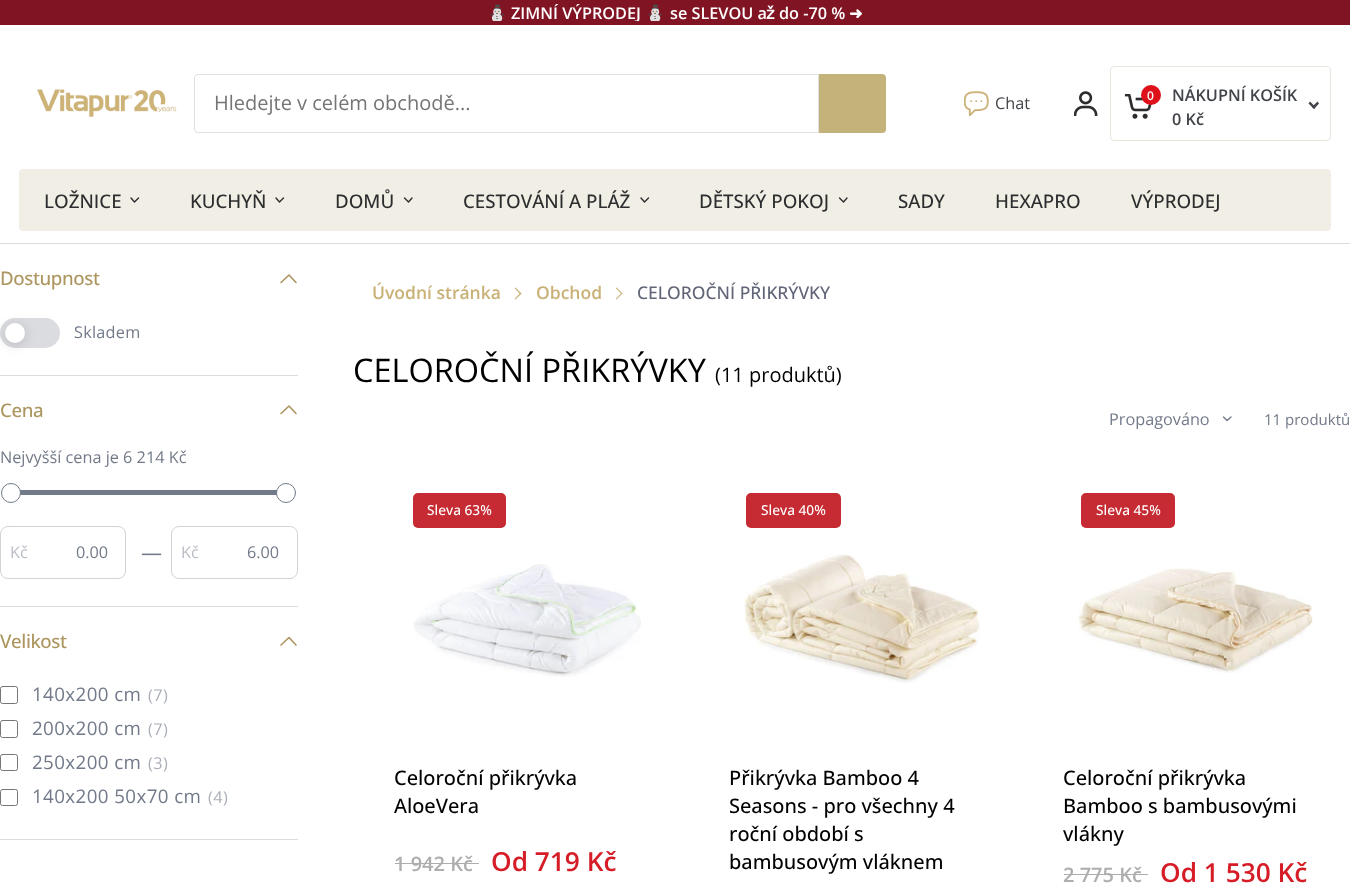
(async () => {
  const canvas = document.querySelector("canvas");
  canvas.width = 1350;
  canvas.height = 888;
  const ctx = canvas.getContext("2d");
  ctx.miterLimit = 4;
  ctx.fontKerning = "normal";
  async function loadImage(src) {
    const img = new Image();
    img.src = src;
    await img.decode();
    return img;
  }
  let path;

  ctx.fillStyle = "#ffffff";
  ctx.fillRect(0, 0, 1350, 888);
  ctx.fillStyle = "#801422";
  ctx.fillRect(0, 0, 1350, 25);
  ctx.drawImage(await loadImage("img/1.png"), 37, 89, 140, 28);
  ctx.beginPath();
  ctx.roundRect(194.5, 74.5, 624, 58, [3.5, 0, 0, 3.5]);
  ctx.strokeStyle = "#e0e0e0";
  ctx.stroke();
  ctx.fillStyle = "#c4b27b";
  ctx.beginPath();
  ctx.roundRect(819, 74, 67, 59, [0, 4, 4, 0]);
  ctx.fill();
  ctx.drawImage(await loadImage("img/2.png"), 964, 91, 25, 25);
  ctx.drawImage(await loadImage("img/3.png"), 1074, 91, 24, 25);
  ctx.beginPath();
  ctx.roundRect(1110.5, 66.5, 220, 74, 3.5);
  ctx.strokeStyle = "#e9e5dd";
  ctx.stroke();
  ctx.drawImage(await loadImage("img/4.png"), 1124, 94, 28, 25);
  ctx.fillStyle = "#de111b";
  ctx.beginPath();
  ctx.arc(1151, 95, 10, 0, Math.PI * 2);
  ctx.fill();
  ctx.fillStyle = "#414449";
  path = new Path2D("M1317.5 101.5L1319 103.5L1314 109L1312 107Z");
  ctx.fill(path);
  path = new Path2D("M1310 101.5L1315.5 107L1314 109L1308.5 103.5Z");
  ctx.fill(path);
  ctx.fillStyle = "#f1eee5";
  ctx.beginPath();
  ctx.roundRect(19, 169, 1312, 62, 4);
  ctx.fill();
  path = new Path2D("M138.5 198L134.5 202L131 198");
  ctx.strokeStyle = "#2c2d2e";
  ctx.lineWidth = 1.4;
  ctx.lineCap = "round";
  ctx.lineJoin = "round";
  ctx.stroke(path);
  path = new Path2D("M283.5 198L279.5 202L276 198");
  ctx.stroke(path);
  path = new Path2D("M412 198L408.5 202L404.5 198");
  ctx.stroke(path);
  path = new Path2D("M648.5 198L644.5 202L641 198");
  ctx.stroke(path);
  path = new Path2D("M847 198L843.5 202L839.5 198");
  ctx.stroke(path);
  ctx.fillStyle = "#dadce0";
  ctx.fillRect(0, 243, 1350, 1);
  ctx.fillRect(0, 375, 298, 1);
  path = new Path2D("M296 282.5L289 275L281 282.5");
  ctx.strokeStyle = "#ac955e";
  ctx.lineWidth = 1.6;
  ctx.stroke(path);
  ctx.beginPath();
  ctx.roundRect(0, 318, 60, 30, 15);
  ctx.fill();
  ctx.fillStyle = "rgba(0, 0, 0, 0.15)";
  ctx.filter = "blur(6px)";
  ctx.beginPath();
  ctx.roundRect(5, 325, 20, 20, 10);
  ctx.fill();
  ctx.filter = "none";
  ctx.fillStyle = "#ffffff";
  ctx.beginPath();
  ctx.arc(15, 333, 10, 0, Math.PI * 2);
  ctx.fill();
  ctx.fillStyle = "#dadce0";
  ctx.fillRect(0, 606, 298, 1);
  path = new Path2D("M296 413.5L289 406L281 413.5");
  ctx.stroke(path);
  ctx.fillStyle = "#727a89";
  ctx.fillRect(20, 490, 257, 5);
  ctx.fillStyle = "#ffffff";
  ctx.beginPath();
  ctx.arc(11, 493, 9.5, 0, Math.PI * 2);
  ctx.fill();
  ctx.strokeStyle = "#727a89";
  ctx.lineWidth = 1;
  ctx.stroke();
  ctx.beginPath();
  ctx.arc(286, 493, 9.5, 0, Math.PI * 2);
  ctx.fill();
  ctx.stroke();
  ctx.beginPath();
  ctx.roundRect(0.5, 526.5, 125, 52, 7.5);
  ctx.strokeStyle = "#d3d3d3";
  ctx.lineJoin = "miter";
  ctx.stroke();
  ctx.beginPath();
  ctx.roundRect(171.5, 526.5, 126, 52, 7.5);
  ctx.stroke();
  ctx.fillStyle = "#dadce0";
  ctx.fillRect(0, 839, 298, 1);
  path = new Path2D("M296 645L289 637.5L281 645");
  ctx.strokeStyle = "#ac955e";
  ctx.lineWidth = 1.6;
  ctx.lineJoin = "round";
  ctx.stroke(path);
  ctx.beginPath();
  ctx.roundRect(0.5, 686.5, 17, 17, 2);
  ctx.strokeStyle = "#767676";
  ctx.lineWidth = 1;
  ctx.lineJoin = "miter";
  ctx.stroke();
  ctx.beginPath();
  ctx.roundRect(0.5, 720.5, 17, 17, 2);
  ctx.stroke();
  ctx.beginPath();
  ctx.roundRect(0.5, 754.5, 17, 16, 2);
  ctx.stroke();
  ctx.beginPath();
  ctx.roundRect(0.5, 789.5, 17, 16, 2);
  ctx.stroke();
  ctx.fillStyle = "#c9b177";
  path = new Path2D("M514.5 288L515.5 287.5L521.5 293.5L520.5 294.5Z");
  ctx.fill(path);
  path = new Path2D("M514.5 299L520.5 292.5L521.5 293.5L515.5 299.5Z");
  ctx.fill(path);
  path = new Path2D("M615.5 288L616.5 287.5L622.5 293.5L622 294.5Z");
  ctx.fill(path);
  path = new Path2D("M615.5 299L622 292.5L622.5 293.5L616.5 299.5Z");
  ctx.fill(path);
  path = new Path2D("M1231 417L1227 420.5L1223.5 417");
  ctx.strokeStyle = "#727a89";
  ctx.lineWidth = 1.4;
  ctx.lineJoin = "round";
  ctx.stroke(path);
  ctx.fillStyle = "#c62a32";
  ctx.beginPath();
  ctx.roundRect(413, 493, 93, 35, 5);
  ctx.fill();
  ctx.drawImage(await loadImage("img/5.png"), 413, 564, 228, 113);
  ctx.fillStyle = "#aeaeae";
  ctx.fillRect(395, 863, 84, 1);
  ctx.fillStyle = "#c62a32";
  ctx.beginPath();
  ctx.roundRect(746, 493, 95, 35, 5);
  ctx.fill();
  ctx.drawImage(await loadImage("img/6.png"), 743, 554, 237, 129);
  ctx.beginPath();
  ctx.roundRect(1081, 493, 94, 35, 5);
  ctx.fill();
  ctx.drawImage(await loadImage("img/7.png"), 1078, 568, 235, 105);
  ctx.fillStyle = "#aeaeae";
  ctx.fillRect(1064, 874, 84, 1);
  ctx.save();
  ctx.beginPath();
  ctx.rect(63, 4, 1225, 17);
  ctx.clip();
  ctx.font = "bold 16.25px Noto Color Emoji";
  ctx.fillStyle = "#ffffff";
  ctx.fillText("⛄️", 487, 19);
  ctx.font = "600 16.25px Open Sans";
  ctx.fillText("ZIMNÍ VÝPRODEJ", 511, 19);
  ctx.font = "bold 16.25px Noto Color Emoji";
  ctx.fillText("⛄️", 645, 19);
  ctx.restore();
  ctx.font = "600 16.25px Open Sans";
  ctx.fillStyle = "#ffffff";
  ctx.fillText("se SLEVOU a", 670, 19);
  ctx.font = "bold 16.25px DejaVu Sans";
  ctx.fillText("ž", 766, 19);
  ctx.font = "600 16.25px Open Sans";
  ctx.fillText("do -70 %", 779, 19);
  ctx.font = "bold 16.25px DejaVu Sans";
  ctx.fillText("➜", 849, 19);
  ctx.font = "20px Open Sans";
  ctx.fillStyle = "#757575";
  ctx.fillText("Hledejte v celém obchodě...", 214, 110);
  ctx.font = "16.25px Open Sans";
  ctx.fillStyle = "#414449";
  ctx.fillText("Chat", 995, 109);
  ctx.font = "600 12px Open Sans";
  ctx.fillStyle = "#f5f5f5";
  ctx.fillText("0", 1147, 100);
  ctx.font = "600 16.25px Open Sans";
  ctx.fillStyle = "#414449";
  ctx.fillText("NÁKUPNÍ KOŠÍK", 1172, 101);
  ctx.fillText("0 Kč", 1172, 125);
  ctx.font = "500 18.75px Open Sans";
  ctx.fillStyle = "#2c2d2e";
  for (const [text, x, y] of [
    ["LOŽNICE", 44, 208],
    ["KUCHYŇ", 190, 208],
    ["DOMŮ", 335, 208],
    ["CESTOVÁNÍ A PLÁŽ", 463, 208],
    ["DĚTSKÝ POKOJ", 699, 208],
    ["SADY", 898, 208],
    ["HEXAPRO", 995, 208],
    ["VÝPRODEJ", 1131, 208],
  ]) {
    ctx.fillText(text, x, y);
  }
  ctx.letterSpacing = "-0.4px";
  ctx.fillStyle = "#ac955e";
  ctx.fillText("Dostupnost", 0, 285);
  ctx.letterSpacing = "0.25px";
  ctx.font = "16.25px Open Sans";
  ctx.fillStyle = "#727a89";
  ctx.fillText("Skladem", 74, 338);
  ctx.letterSpacing = "-0.4px";
  ctx.font = "500 18.75px Open Sans";
  ctx.fillStyle = "#ac955e";
  ctx.fillText("Cena", 0, 417);
  ctx.letterSpacing = "0px";
  ctx.font = "16.25px Open Sans";
  ctx.fillStyle = "#727a89";
  ctx.fillText("Nejvyšší cena je 6 214 Kč", 0, 463);
  ctx.fillStyle = "#b9bdc4";
  ctx.fillText("Kč", 10, 558);
  ctx.fillStyle = "#727a89";
  ctx.fillText("0.00", 76, 558);
  ctx.font = "21px Open Sans";
  ctx.fillText("—", 141, 560);
  ctx.font = "16.25px Open Sans";
  ctx.fillStyle = "#b9bdc4";
  ctx.fillText("Kč", 181, 558);
  ctx.fillStyle = "#727a89";
  ctx.fillText("6.00", 247, 558);
  ctx.letterSpacing = "-0.4px";
  ctx.font = "500 18.75px Open Sans";
  ctx.fillStyle = "#ac955e";
  ctx.fillText("Velikost", 0, 648);
  ctx.letterSpacing = "0.4px";
  ctx.font = "18.75px Open Sans";
  ctx.fillStyle = "#727a89";
  ctx.fillText("140x200 cm", 32, 701);
  ctx.font = "16.25px Open Sans";
  ctx.fillStyle = "#aaafb8";
  ctx.fillText("(7)", 148, 701);
  ctx.font = "18.75px Open Sans";
  ctx.fillStyle = "#727a89";
  ctx.fillText("200x200 cm", 32, 735);
  ctx.font = "16.25px Open Sans";
  ctx.fillStyle = "#aaafb8";
  ctx.fillText("(7)", 148, 735);
  ctx.font = "18.75px Open Sans";
  ctx.fillStyle = "#727a89";
  ctx.fillText("250x200 cm", 32, 769);
  ctx.font = "16.25px Open Sans";
  ctx.fillStyle = "#aaafb8";
  ctx.fillText("(3)", 148, 769);
  ctx.font = "18.75px Open Sans";
  ctx.fillStyle = "#727a89";
  ctx.fillText("140x200 50x70 cm", 32, 803);
  ctx.font = "16.25px Open Sans";
  ctx.fillStyle = "#aaafb8";
  ctx.fillText("(4)", 208, 803);
  ctx.letterSpacing = "0px";
  ctx.font = "600 17.5px Open Sans";
  ctx.fillStyle = "#c9b177";
  ctx.fillText("Úvodní stránka", 372, 299);
  ctx.fillText("Obchod", 536, 299);
  ctx.font = "500 17.5px Open Sans";
  ctx.fillStyle = "#616577";
  ctx.fillText("CELOROČNÍ PŘIKRÝVKY", 637, 299);
  ctx.font = "32.5px Open Sans";
  ctx.fillStyle = "#000000";
  ctx.fillText("CELOROČNÍ PŘIKRÝVKY", 353, 382);
  ctx.font = "20px Open Sans";
  ctx.fillText("(11 produktů)", 715, 382);
  ctx.font = "16.25px Open Sans";
  ctx.fillStyle = "#727a89";
  ctx.fillText("Propagováno", 1109, 425);
  ctx.font = "15px Open Sans";
  ctx.fillText("11 produktů", 1264, 425);
  ctx.font = "500 13.75px Open Sans";
  ctx.fillStyle = "#ffffff";
  ctx.fillText("Sleva 63%", 427, 515);
  ctx.font = "500 20px Open Sans";
  ctx.fillStyle = "#000000";
  ctx.fillText("Celoroční přikrývka", 394, 785);
  ctx.fillText("AloeVera", 394, 813);
  ctx.font = "600 20px Open Sans";
  ctx.fillStyle = "#aeaeae";
  ctx.fillText("1 942 Kč", 394, 871);
  ctx.font = "600 26.25px Open Sans";
  ctx.fillStyle = "#d61d27";
  ctx.fillText("Od 719 Kč", 491, 871);
  ctx.font = "500 13.75px Open Sans";
  ctx.fillStyle = "#ffffff";
  ctx.fillText("Sleva 40%", 761, 515);
  ctx.font = "500 20px Open Sans";
  ctx.fillStyle = "#000000";
  for (const [text, x, y] of [
    ["Přikrývka Bamboo 4", 729, 785],
    ["Seasons - pro všechny 4", 729, 813],
    ["roční období s", 729, 841],
    ["bambusovým vláknem", 729, 869],
  ]) {
    ctx.fillText(text, x, y);
  }
  ctx.font = "500 13.75px Open Sans";
  ctx.fillStyle = "#ffffff";
  ctx.fillText("Sleva 45%", 1096, 515);
  ctx.font = "500 20px Open Sans";
  ctx.fillStyle = "#000000";
  for (const [text, x, y] of [
    ["Celoroční přikrývka", 1063, 785],
    ["Bamboo s bambusovými", 1063, 813],
    ["vlákny", 1063, 841],
  ]) {
    ctx.fillText(text, x, y);
  }
  ctx.font = "600 20px Open Sans";
  ctx.fillStyle = "#aeaeae";
  ctx.fillText("2 775 Kč", 1063, 882);
  ctx.font = "600 26.25px Open Sans";
  ctx.fillStyle = "#d61d27";
  ctx.fillText("Od 1 530 Kč", 1160, 882);
})();
